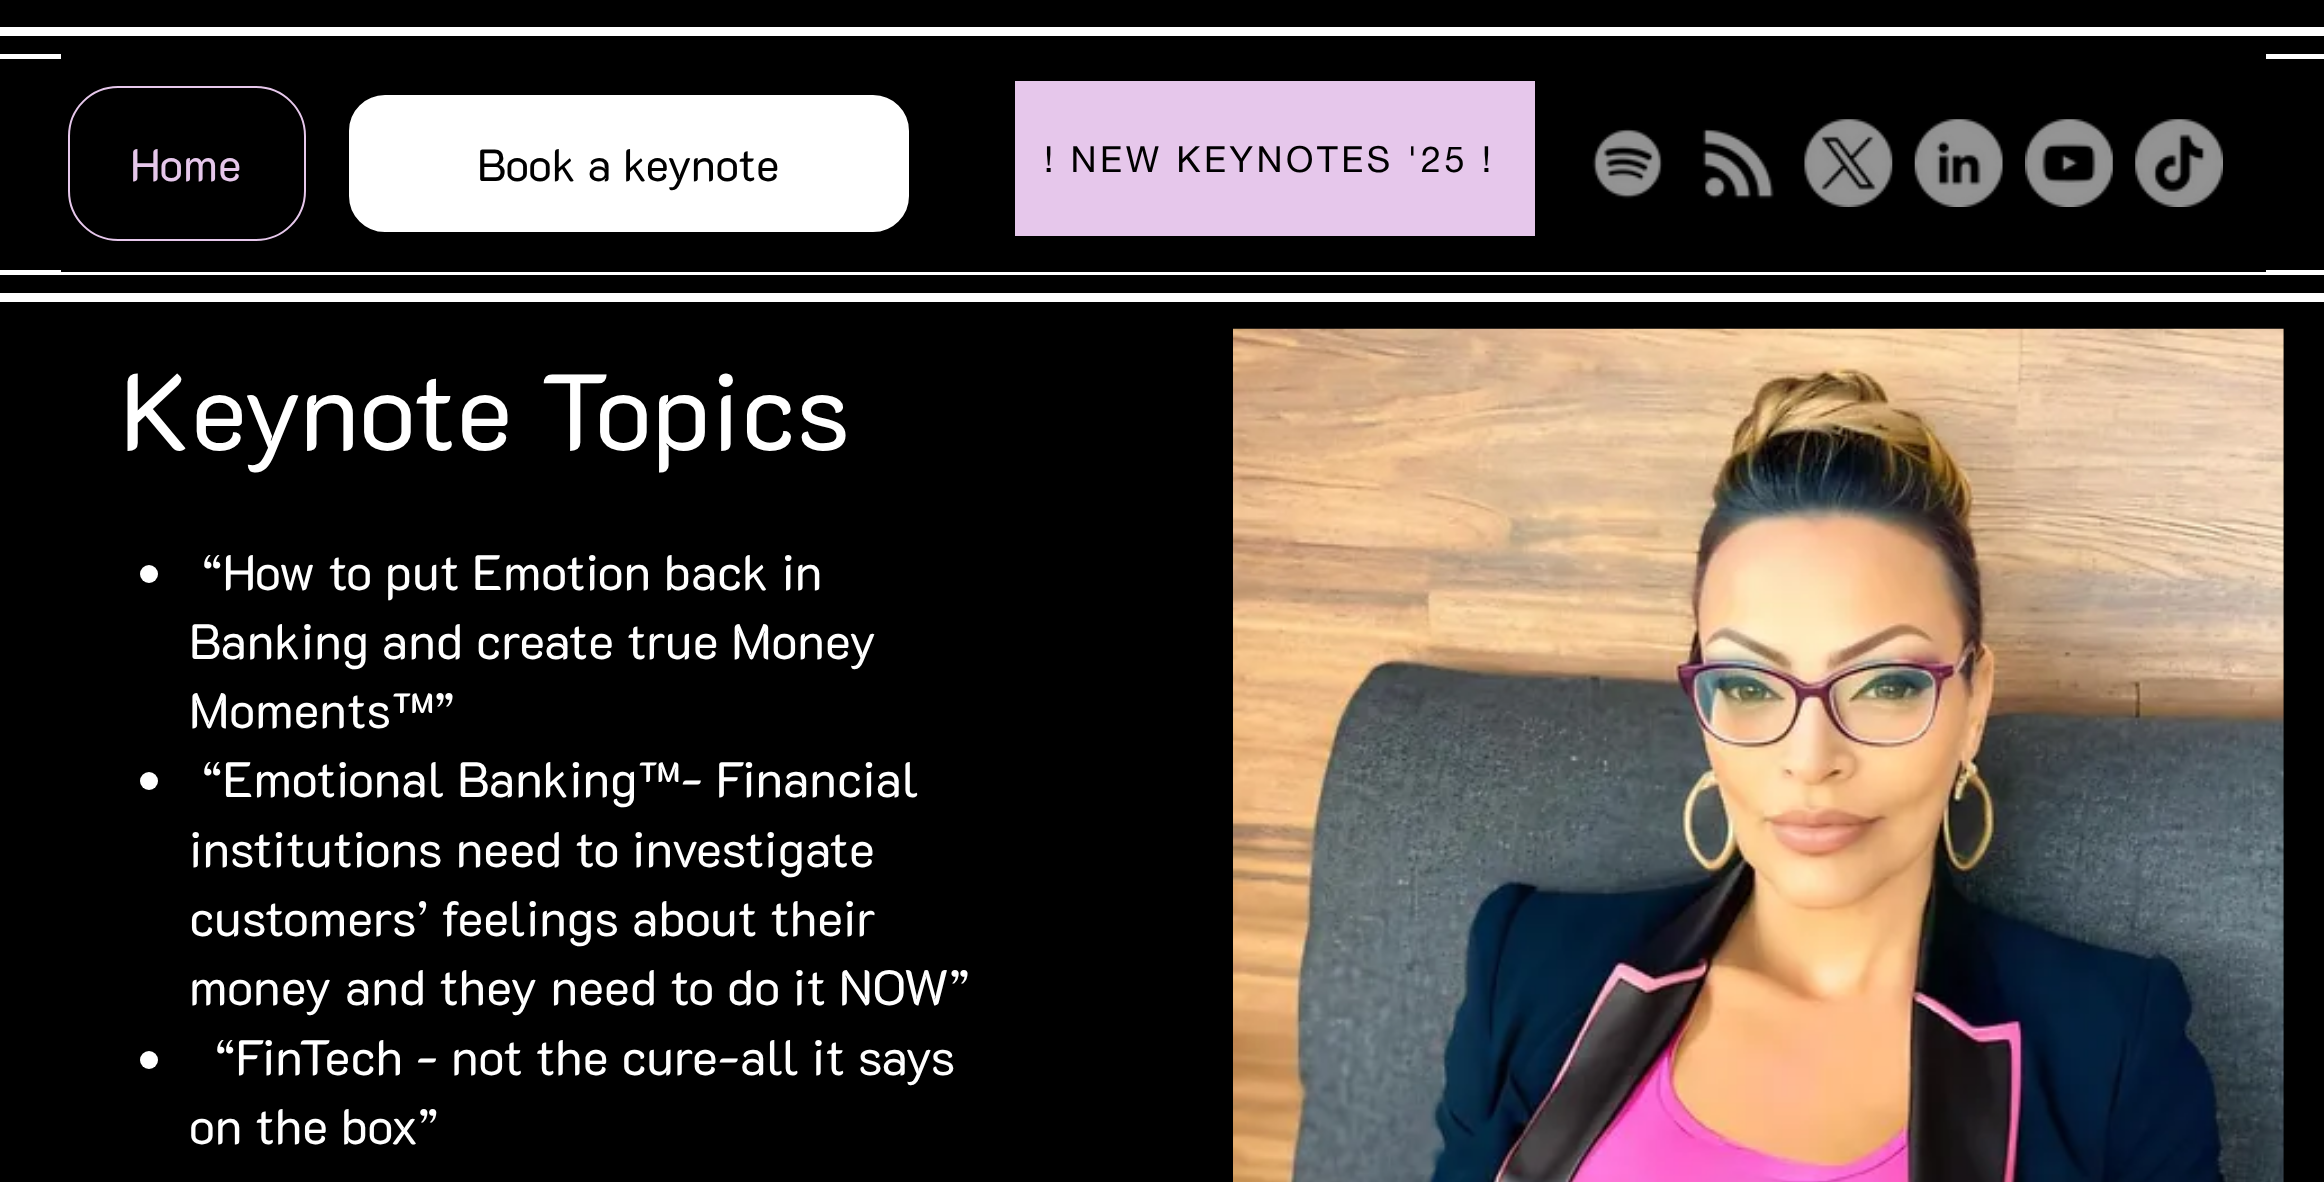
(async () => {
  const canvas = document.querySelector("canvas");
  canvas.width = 2324;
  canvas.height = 1182;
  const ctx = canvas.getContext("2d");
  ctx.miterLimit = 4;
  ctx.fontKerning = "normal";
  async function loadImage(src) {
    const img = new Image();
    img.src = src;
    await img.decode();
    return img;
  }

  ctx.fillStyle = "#000000";
  ctx.fillRect(0, 0, 2324, 1182);
  for (const [x, y, w, h, color] of [
    [0, 27, 2324, 9, "#ffffff"],
    [0, 293, 2324, 9, "#ffffff"],
    [0, 54, 2324, 5, "#ffffff"],
    [0, 270, 2324, 5, "#ffffff"],
    [61, 54, 2205, 218, "#000000"],
  ]) {
    ctx.fillStyle = color;
    ctx.fillRect(x, y, w, h);
  }
  ctx.beginPath();
  ctx.roundRect(69, 87, 236, 153, 49);
  ctx.strokeStyle = "#e6c7eb";
  ctx.lineWidth = 2;
  ctx.stroke();
  ctx.fillStyle = "#ffffff";
  ctx.beginPath();
  ctx.roundRect(350, 96, 558, 135, 35);
  ctx.fill();
  ctx.strokeStyle = "#ffffff";
  ctx.stroke();
  ctx.fillStyle = "#e6c7eb";
  ctx.fillRect(1015, 81, 520, 155);
  ctx.drawImage(await loadImage("img/1.png"), 1592, 128, 71, 71);
  ctx.drawImage(await loadImage("img/2.png"), 1702, 128, 72, 71);
  ctx.drawImage(await loadImage("img/3.png"), 1804, 119, 89, 88);
  ctx.drawImage(await loadImage("img/4.png"), 1914, 119, 89, 88);
  ctx.drawImage(await loadImage("img/5.png"), 2025, 119, 88, 88);
  ctx.drawImage(await loadImage("img/6.png"), 2135, 119, 88, 88);
  ctx.drawImage(await loadImage("img/7.png"), 1233, 328, 1051, 854);
  ctx.fillStyle = "#ffffff";
  ctx.beginPath();
  ctx.arc(149, 574, 9, 0, Math.PI * 2);
  ctx.fill();
  ctx.beginPath();
  ctx.arc(149, 781, 9, 0, Math.PI * 2);
  ctx.fill();
  ctx.beginPath();
  ctx.arc(149, 1060, 9, 0, Math.PI * 2);
  ctx.fill();
  ctx.font = "45px 'K2D'";
  ctx.fillStyle = "#e6c7eb";
  ctx.fillText("Home", 130, 181);
  ctx.fillStyle = "#000000";
  ctx.fillText("Book a keynote", 477, 181);
  ctx.letterSpacing = "3.6px";
  ctx.font = "36px helvetica neue";
  ctx.fillText("! NEW KEYNOTES '25 !", 1044, 172);
  ctx.letterSpacing = "0px";
  ctx.font = "108px 'K2D'";
  ctx.fillStyle = "#ffffff";
  ctx.fillText("Keynote Topics", 120, 450);
  ctx.font = "49.5px 'K2D'";
  for (const [text, x, y] of [
    ["“How to put Emotion back in", 202, 590],
    ["Banking and create true Money", 189, 659],
    ["Moments™”", 189, 728],
    ["“Emotional Banking™- Financial", 202, 797],
    ["institutions need to investigate", 189, 867],
    ["customers’ feelings about their", 189, 936],
    ["money and they need to do it NOW”", 189, 1005],
    ["“FinTech - not the cure-all it says", 215, 1075],
    ["on the box”", 189, 1144],
  ]) {
    ctx.fillText(text, x, y);
  }
})();
